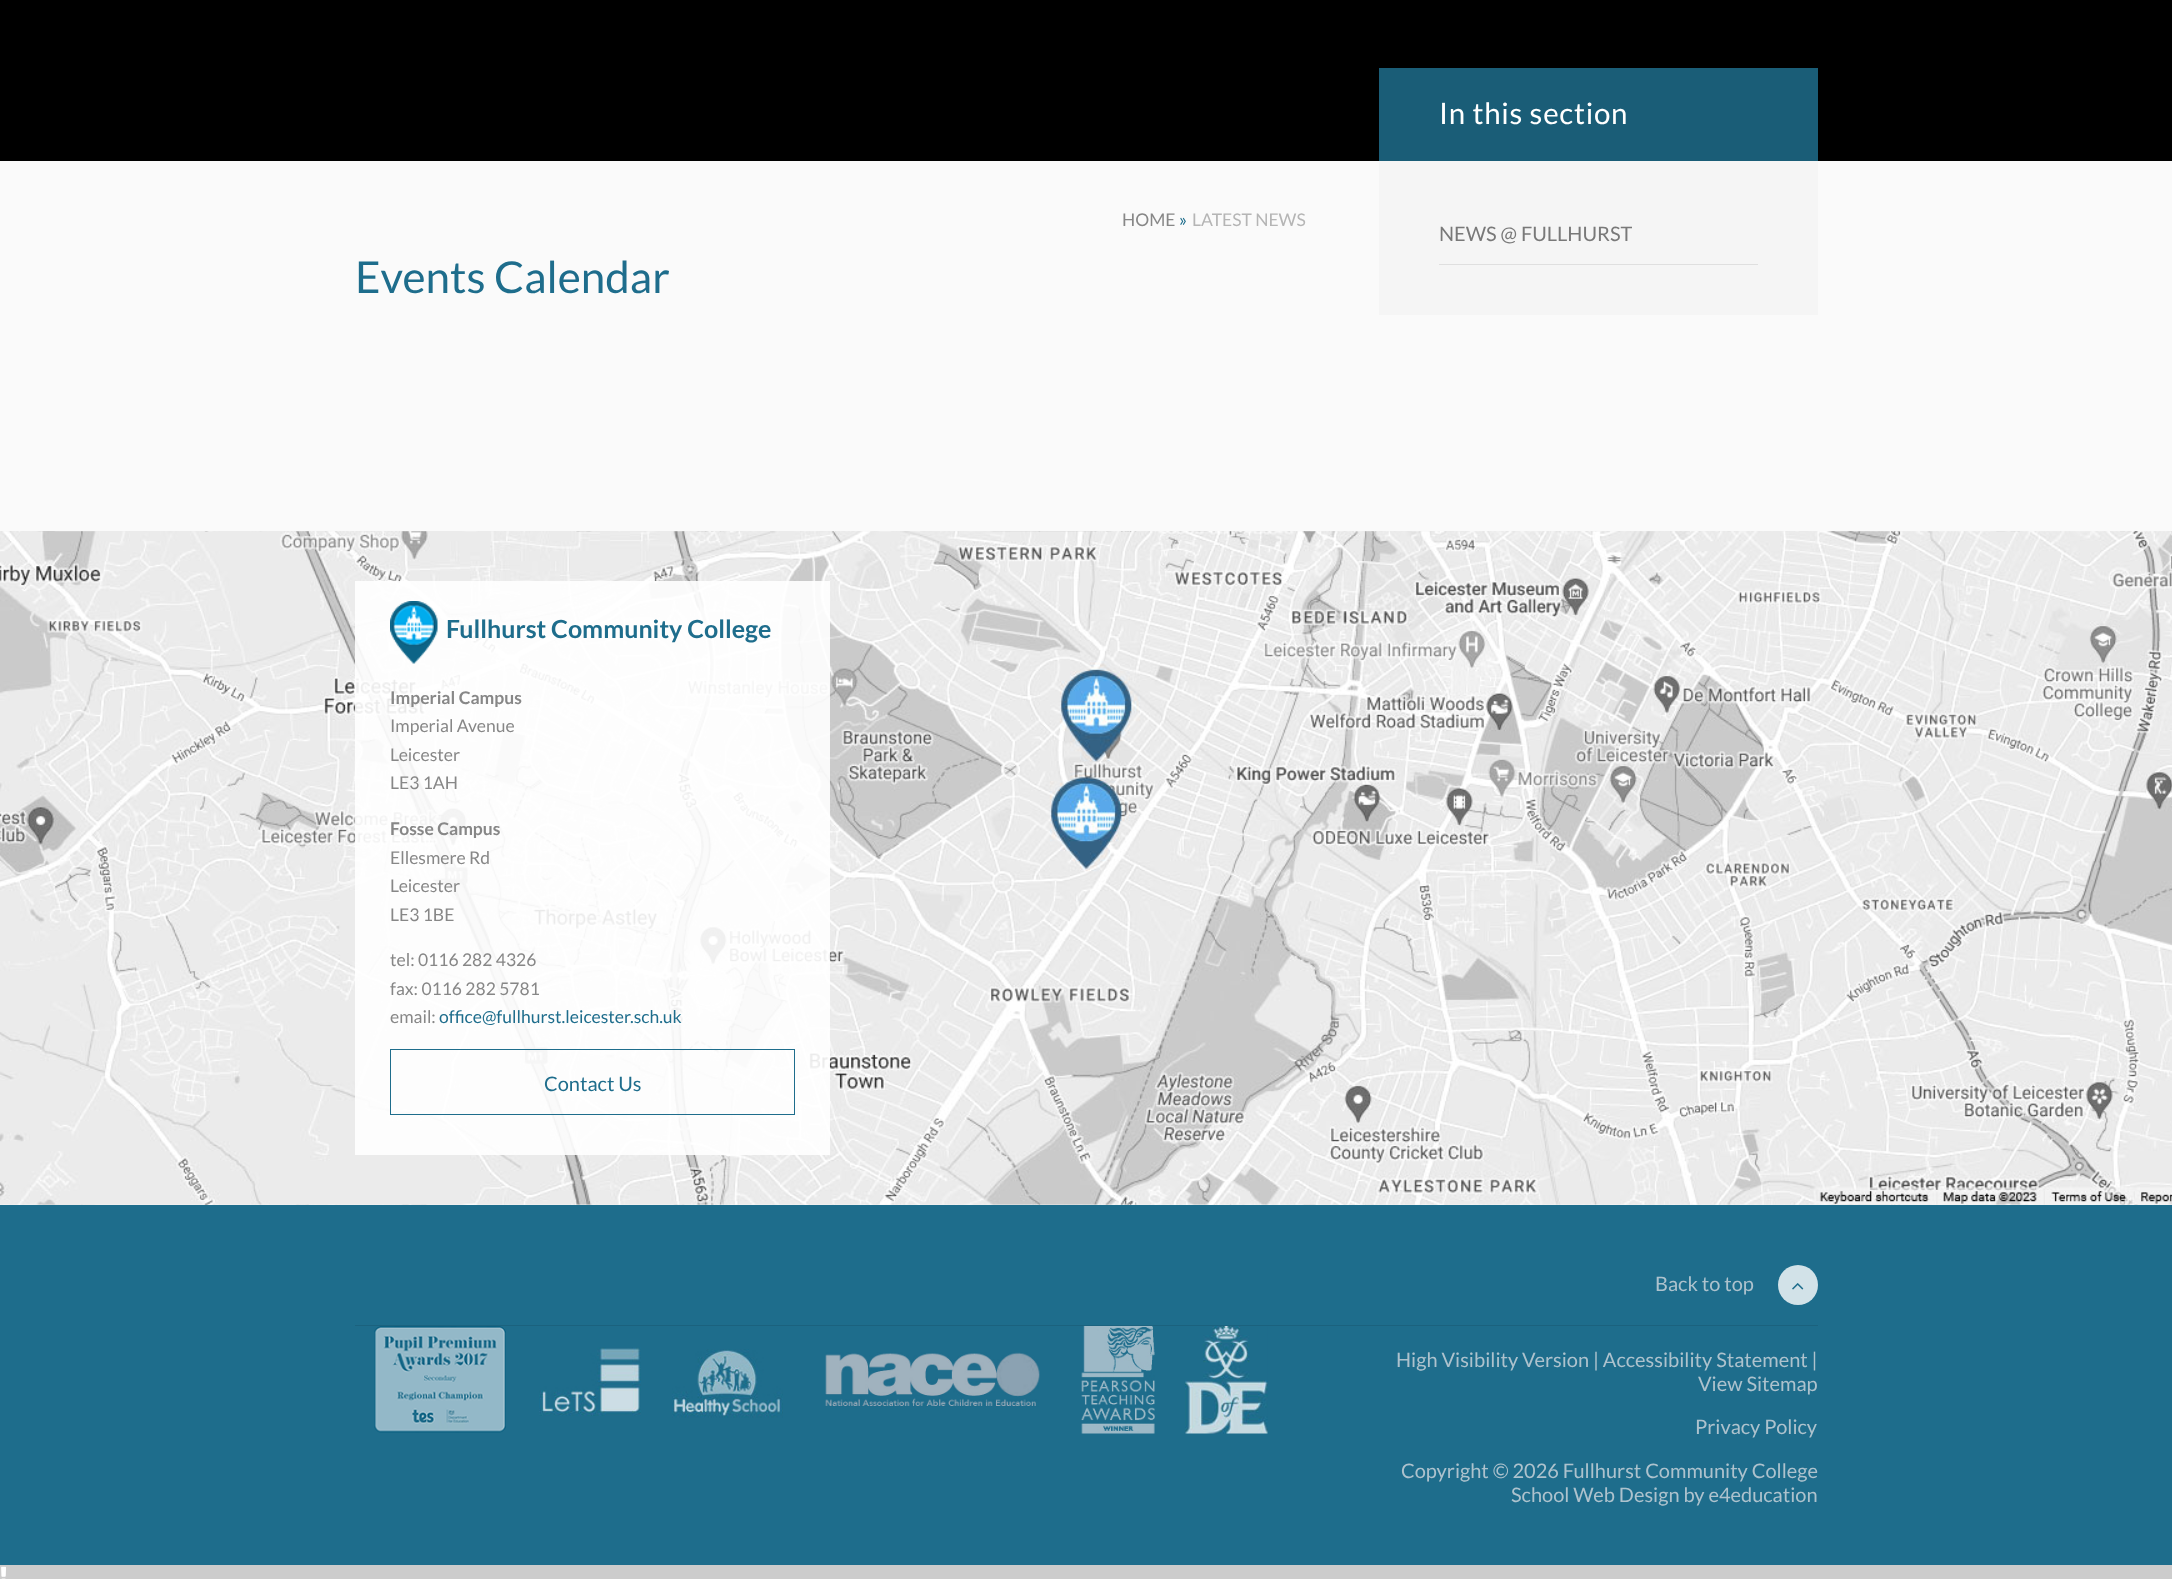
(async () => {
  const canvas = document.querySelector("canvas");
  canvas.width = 2172;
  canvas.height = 1579;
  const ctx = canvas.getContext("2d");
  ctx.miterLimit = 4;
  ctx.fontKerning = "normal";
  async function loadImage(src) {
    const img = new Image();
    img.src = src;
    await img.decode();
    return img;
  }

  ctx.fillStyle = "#cccccc";
  ctx.fillRect(0, 0, 2172, 1579);
  for (const [x, y, w, h, color] of [
    [0, 161, 2172, 1044, "#fafafa"],
    [0, 0, 2172, 161, "#000000"],
    [1379, 161, 439, 154, "#f5f5f5"],
    [1379, 68, 439, 93, "#1a5d77"],
    [1439, 264, 319, 1, "#dfdfdf"],
  ]) {
    ctx.fillStyle = color;
    ctx.fillRect(x, y, w, h);
  }
  ctx.drawImage(await loadImage("img/1.png"), 0, 531, 2172, 674);
  ctx.fillStyle = "rgba(255, 255, 255, 0.9)";
  ctx.fillRect(355, 581, 475, 574);
  ctx.drawImage(await loadImage("img/2.png"), 390, 601, 48, 63);
  ctx.strokeStyle = "#1e6d8c";
  ctx.strokeRect(390.5, 1049.5, 404, 65);
  ctx.fillStyle = "#1e6d8c";
  ctx.fillRect(0, 1205, 2172, 360);
  ctx.fillStyle = "#1b627e";
  ctx.fillRect(355, 1325, 1463, 1);
  ctx.fillStyle = "#d2e2e8";
  ctx.beginPath();
  ctx.arc(1798, 1285, 20, 0, Math.PI * 2);
  ctx.fill();
  ctx.drawImage(await loadImage("img/3.png"), 1792, 1283, 12, 7);
  ctx.drawImage(await loadImage("img/4.png"), 374, 1326, 132, 107);
  ctx.drawImage(await loadImage("img/5.png"), 539, 1347, 102, 69);
  ctx.drawImage(await loadImage("img/6.png"), 672, 1349, 111, 69);
  ctx.drawImage(await loadImage("img/7.png"), 825, 1352, 215, 55);
  ctx.drawImage(await loadImage("img/8.png"), 1081, 1326, 74, 108);
  ctx.drawImage(await loadImage("img/9.png"), 1185, 1326, 83, 108);
  ctx.drawImage(await loadImage("img/10.png"), 1, 1566, 5, 13);
  ctx.letterSpacing = "0.75px";
  ctx.font = "29.5px Lato";
  ctx.fillStyle = "#ffffff";
  ctx.fillText("In this section", 1439, 124);
  ctx.letterSpacing = "0px";
  ctx.font = "20px Lato";
  ctx.fillStyle = "#797979";
  ctx.fillText("NEWS @ FULLHURST", 1439, 241);
  ctx.font = "17.5px Lato";
  ctx.fillStyle = "#878787";
  ctx.fillText("HOME", 1122, 226);
  ctx.fillStyle = "#1e6d8c";
  ctx.fillText("»", 1179, 226);
  ctx.fillStyle = "#b5b5b5";
  ctx.fillText("LATEST NEWS", 1192, 226);
  ctx.font = "44px Lato";
  ctx.fillStyle = "#1e6d8c";
  ctx.fillText("Events Calendar", 355, 293);
  ctx.font = "bold 25px Lato";
  ctx.fillText("Fullhurst Community College", 446, 638);
  ctx.font = "bold 17.5px Lato";
  ctx.fillStyle = "#878787";
  ctx.fillText("Imperial Campus", 390, 704);
  ctx.font = "17.5px Lato";
  for (const [text, x, y] of [
    ["Imperial Avenue", 390, 732],
    ["Leicester", 390, 761],
    ["LE3 1AH", 390, 789],
  ]) {
    ctx.fillText(text, x, y);
  }
  ctx.font = "bold 17.5px Lato";
  ctx.fillText("Fosse Campus", 390, 835);
  ctx.font = "17.5px Lato";
  for (const [text, x, y] of [
    ["Ellesmere Rd", 390, 864],
    ["Leicester", 390, 892],
    ["LE3 1BE", 390, 921],
    ["tel: 0116 282 4326", 390, 966],
    ["fax: 0116 282 5781", 390, 995],
    ["email:", 390, 1023],
  ]) {
    ctx.fillText(text, x, y);
  }
  ctx.fillStyle = "#1e6d8c";
  ctx.fillText("office@fullhurst.leicester.sch.uk", 439, 1023);
  ctx.font = "20px Lato";
  ctx.fillText("Contact Us", 544, 1091);
  ctx.fillStyle = "#adc2cd";
  for (const [text, x, y] of [
    ["Back to top", 1655, 1291],
    ["High Visibility Version | Accessibility Statement |", 1396, 1367],
    ["View Sitemap", 1698, 1391],
    ["Privacy Policy", 1695, 1434],
    ["Copyright © 2026 Fullhurst Community College", 1401, 1478],
    ["School Web Design by e4education", 1511, 1502],
  ]) {
    ctx.fillText(text, x, y);
  }
})();
